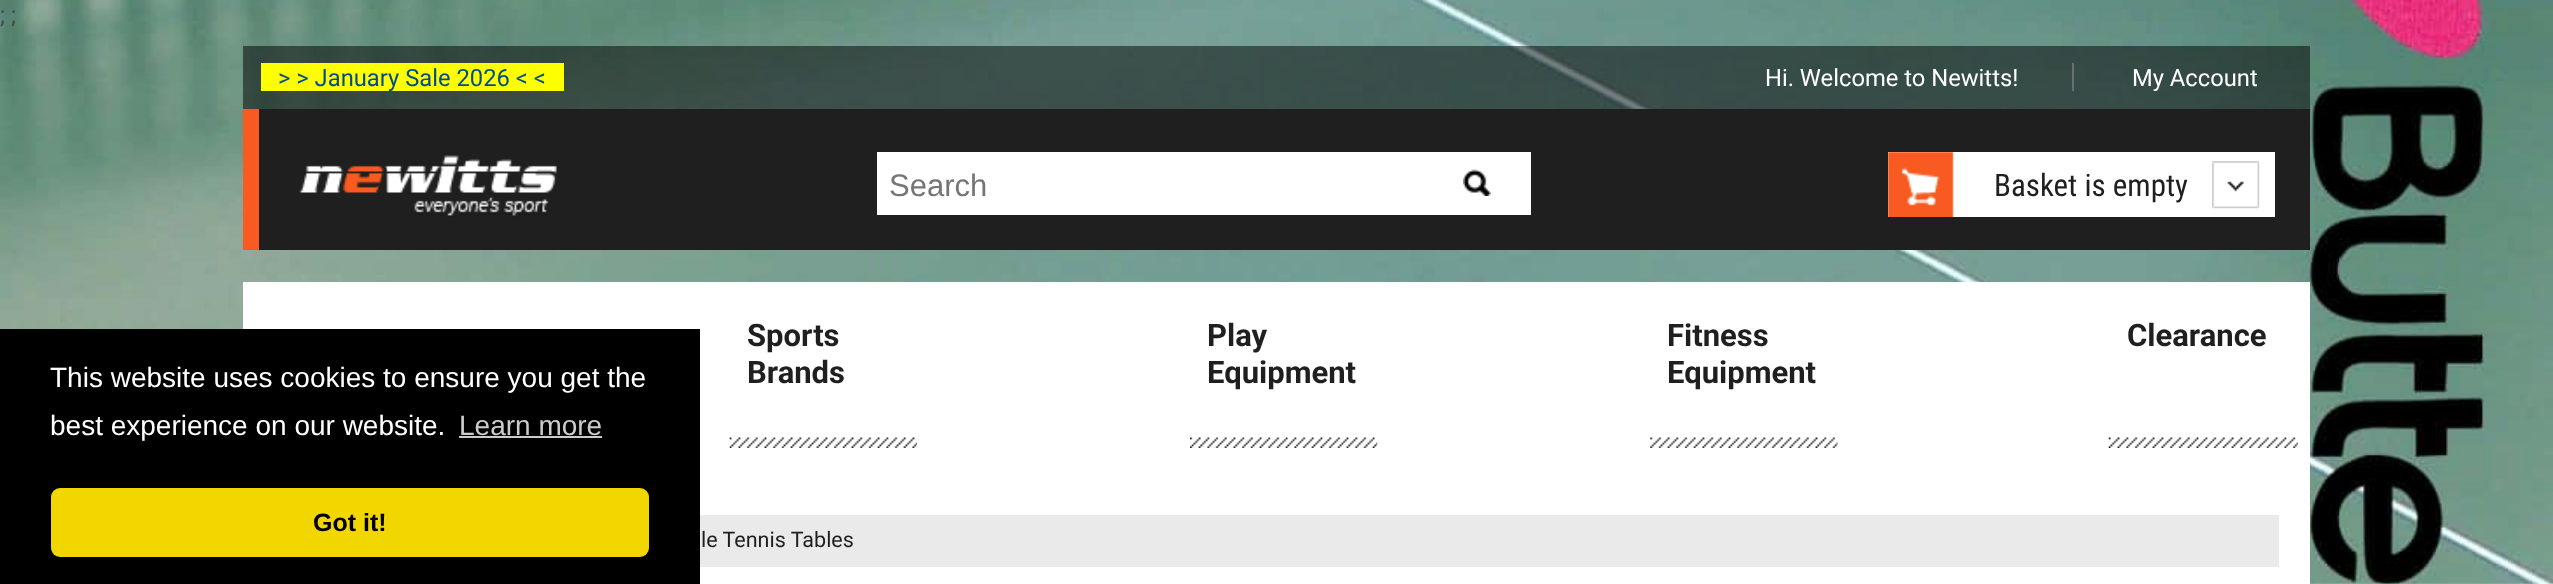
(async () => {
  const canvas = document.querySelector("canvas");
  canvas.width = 2553;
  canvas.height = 584;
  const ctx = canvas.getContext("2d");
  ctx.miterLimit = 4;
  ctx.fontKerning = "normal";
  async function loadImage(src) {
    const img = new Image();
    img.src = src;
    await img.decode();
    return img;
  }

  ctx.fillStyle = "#ffffff";
  ctx.fillRect(0, 0, 2553, 584);
  ctx.drawImage(await loadImage("img/1.png"), 0, 0, 2553, 584);
  for (const [x, y, w, h, color] of [
    [243, 46, 2067, 63, "rgba(0, 0, 0, 0.5)"],
    [261, 63, 303, 28, "#ffff00"],
    [2072, 63, 2, 28, "#677173"],
    [259, 109, 2051, 141, "#1f1f1f"],
    [243, 109, 16, 141, "#f95a21"],
  ]) {
    ctx.fillStyle = color;
    ctx.fillRect(x, y, w, h);
  }
  ctx.drawImage(await loadImage("img/2.png"), 299, 155, 258, 62);
  ctx.fillStyle = "#ffffff";
  ctx.fillRect(877, 152, 654, 63);
  ctx.drawImage(await loadImage("img/3.png"), 1463, 169, 28, 27);
  ctx.fillRect(1888, 152, 387, 65);
  ctx.drawImage(await loadImage("img/4.png"), 1906, 168, 28, 37);
  ctx.drawImage(await loadImage("img/5.png"), 1888, 152, 66, 65);
  ctx.drawImage(await loadImage("img/6.png"), 2212, 161, 48, 48);
  ctx.fillRect(243, 282, 2067, 302);
  ctx.drawImage(await loadImage("img/7.png"), 729, 437, 188, 11);
  ctx.drawImage(await loadImage("img/8.png"), 1190, 437, 188, 11);
  ctx.drawImage(await loadImage("img/9.png"), 1650, 437, 188, 11);
  ctx.drawImage(await loadImage("img/10.png"), 2108, 437, 190, 11);
  for (const [x, y, w, h, color] of [
    [700, 515, 1579, 52, "#eaeaea"],
    [0, 329, 700, 255, "#000000"],
    [459, 436, 143, 2, "#cccccc"],
  ]) {
    ctx.fillStyle = color;
    ctx.fillRect(x, y, w, h);
  }
  ctx.fillStyle = "#f1d600";
  ctx.beginPath();
  ctx.roundRect(51, 488, 598, 69, 9);
  ctx.fill();
  ctx.font = "23.75px Roboto";
  ctx.fillStyle = "#474747";
  ctx.fillText("; ;", 0, 23);
  ctx.fillStyle = "#004b91";
  ctx.fillText("> > January Sale 2026 < <", 278, 86);
  ctx.fillStyle = "#ffffff";
  ctx.fillText("Hi. Welcome to Newitts!", 1765, 86);
  ctx.fillText("My Account", 2132, 86);
  ctx.font = "31px Liberation Sans";
  ctx.fillStyle = "#757575";
  ctx.fillText("Search", 889, 196);
  ctx.font = "31px Roboto Condensed";
  ctx.fillStyle = "#1f1f1f";
  ctx.fillText("Basket is empty", 1994, 196);
  ctx.font = "bold 31px Roboto";
  for (const [text, x, y] of [
    ["Sports", 747, 346],
    ["Brands", 747, 383],
    ["Play", 1207, 346],
    ["Equipment", 1207, 383],
    ["Fitness", 1667, 346],
    ["Equipment", 1667, 383],
    ["Clearance", 2127, 346],
  ]) {
    ctx.fillText(text, x, y);
  }
  ctx.font = "21.5px Roboto";
  ctx.fillText("le Tennis Tables", 701, 547);
  ctx.font = "28px Liberation Sans";
  ctx.fillStyle = "#ffffff";
  ctx.fillText("This website uses cookies to ensure you get the", 50, 387);
  ctx.fillText("best experience on our website.", 50, 435);
  ctx.fillStyle = "#cccccc";
  ctx.fillText("Learn more", 459, 435);
  ctx.font = "bold 25px Liberation Sans";
  ctx.fillStyle = "#000000";
  ctx.fillText("Got it!", 313, 531);
})();
